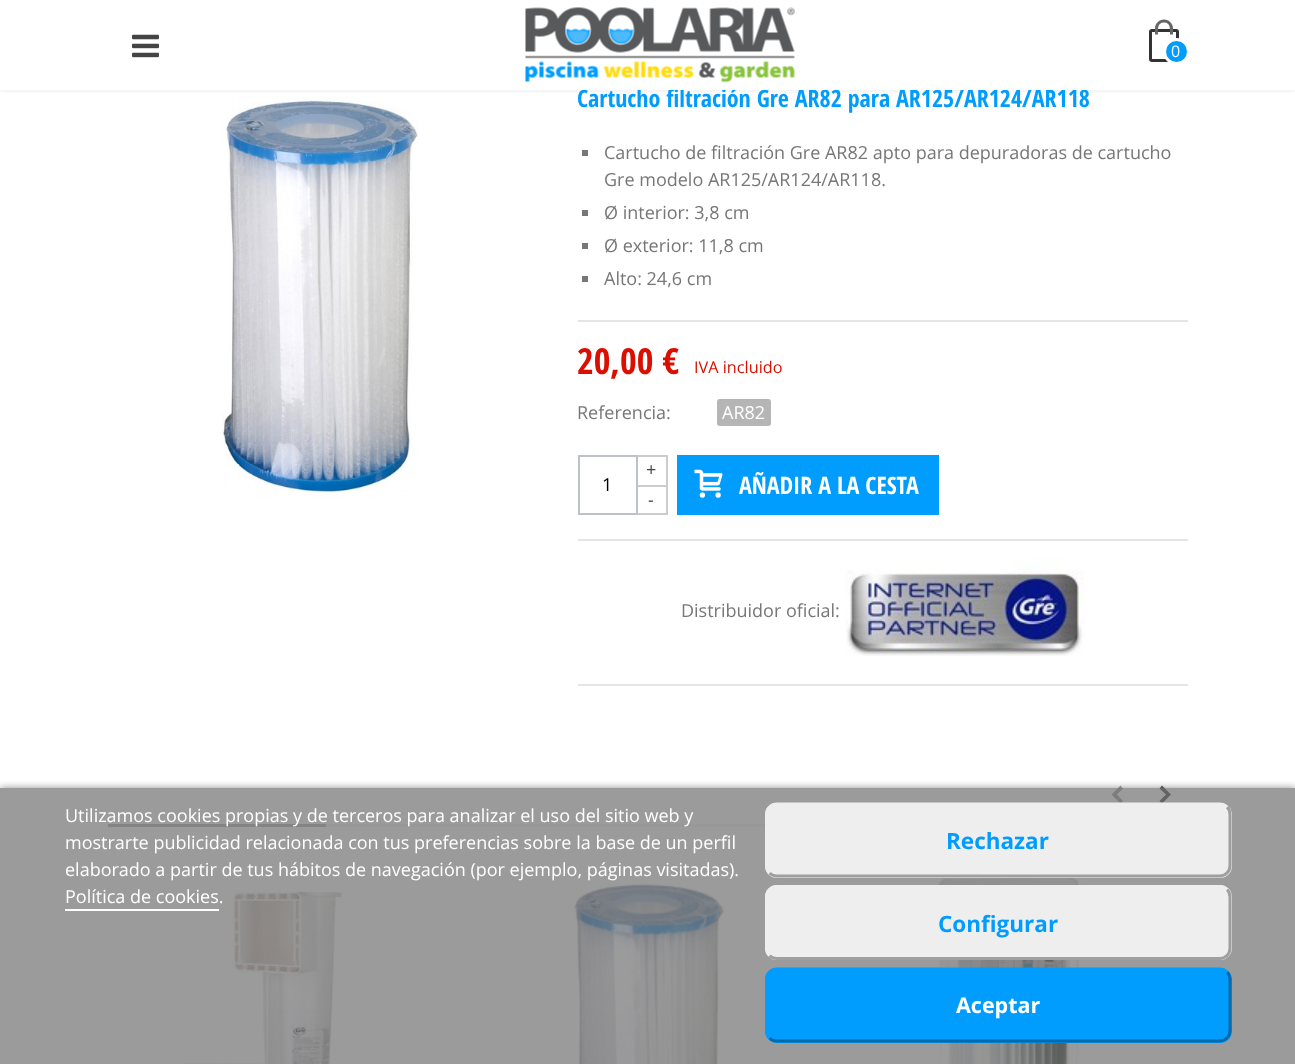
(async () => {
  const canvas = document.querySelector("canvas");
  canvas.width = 1295;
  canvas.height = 1064;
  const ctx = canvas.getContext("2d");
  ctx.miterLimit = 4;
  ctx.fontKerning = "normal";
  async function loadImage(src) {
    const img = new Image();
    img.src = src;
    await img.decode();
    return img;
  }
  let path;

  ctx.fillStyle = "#ffffff";
  ctx.fillRect(0, 0, 1295, 1064);
  ctx.fillStyle = "#f4f4f4";
  ctx.beginPath();
  ctx.roundRect(109, -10, 1078, 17, 8);
  ctx.fill();
  ctx.strokeStyle = "#ffffff";
  ctx.lineWidth = 2;
  ctx.stroke();
  ctx.drawImage(await loadImage("img/3.png"), 222, 96, 197, 404);
  ctx.save();
  ctx.beginPath();
  ctx.rect(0, 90, 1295, 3);
  ctx.clip();
  ctx.fillStyle = "rgba(0, 0, 0, 0.1)";
  ctx.filter = "blur(3px)";
  ctx.beginPath();
  ctx.rect(0, 0, 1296, 90);
  ctx.fill();
  ctx.filter = "none";
  ctx.restore();
  for (const [x, y, w, h, color] of [
    [582, 150, 6, 6, "#777777"],
    [582, 210, 6, 6, "#777777"],
    [582, 243, 6, 6, "#777777"],
    [582, 276, 6, 6, "#777777"],
    [578, 320, 610, 2, "#e5e5e5"],
  ]) {
    ctx.fillStyle = color;
    ctx.fillRect(x, y, w, h);
  }
  ctx.fillStyle = "#b5b5b5";
  ctx.beginPath();
  ctx.roundRect(717, 399, 54, 27, 3);
  ctx.fill();
  for (const [x, y, w, h, color] of [
    [578, 539, 610, 2, "#e5e5e5"],
    [638, 455, 30, 2, "#cccccc"],
    [666, 455, 2, 30, "#cccccc"],
  ]) {
    ctx.fillStyle = color;
    ctx.fillRect(x, y, w, h);
  }
  ctx.strokeStyle = "#bdc2c9";
  ctx.strokeRect(579, 456, 58, 58);
  for (const [x, y, w, h, color] of [
    [638, 485, 30, 2, "#cccccc"],
    [666, 485, 2, 30, "#cccccc"],
    [638, 513, 30, 2, "#cccccc"],
    [677, 455, 262, 60, "#009dff"],
  ]) {
    ctx.fillStyle = color;
    ctx.fillRect(x, y, w, h);
  }
  ctx.drawImage(await loadImage("img/4.png"), 694, 469, 29, 29);
  ctx.fillStyle = "#e5e5e5";
  ctx.fillRect(578, 684, 610, 2);
  ctx.drawImage(await loadImage("img/5.png"), 845, 558, 240, 98);
  ctx.fillStyle = "#999999";
  path = new Path2D("M1111.5 794.5L1120.5 785.5L1123 788.5L1117 794.5L1123 801L1120.5 803.5Z");
  ctx.fill(path);
  ctx.fillStyle = "#444444";
  path = new Path2D("M1159.5 801L1166 794.5L1159.5 788.5L1162 785.5L1171 794.5L1162 803.5Z");
  ctx.fill(path);
  ctx.drawImage(await loadImage("img/6.png"), 183, 890, 161, 174);
  ctx.drawImage(await loadImage("img/7.png"), 564, 874, 161, 190);
  ctx.drawImage(await loadImage("img/8.png"), 938, 878, 143, 186);
  ctx.fillStyle = "#f4f5f6";
  ctx.fillRect(326, 824, 439, 3);
  ctx.fillStyle = "#b2b2b2";
  ctx.fillRect(108, 824, 218, 3);
  ctx.save();
  ctx.beginPath();
  ctx.rect(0, 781, 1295, 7);
  ctx.clip();
  ctx.fillStyle = "#707070";
  ctx.filter = "blur(4px)";
  ctx.beginPath();
  ctx.rect(0, 789, 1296, 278);
  ctx.fill();
  ctx.filter = "none";
  ctx.restore();
  ctx.fillStyle = "rgba(112, 112, 112, 0.7)";
  ctx.fillRect(0, 788, 1295, 276);
  ctx.fillStyle = "#ffffff";
  ctx.fillRect(65, 909, 154, 2);
  ctx.fillStyle = "#eeeeee";
  ctx.beginPath();
  ctx.roundRect(765, 803, 467, 75, 12);
  ctx.fill();
  path = new Path2D("M1227 807C1229 809 1230 811.5 1230 814.5V865.5C1230 868.5 1229 871 1227 873C1225 875 1222.5 876 1219.5 876H777C774 876 771.5 875 769.5 873");
  ctx.strokeStyle = "#9f9f9f";
  ctx.lineWidth = 3;
  ctx.stroke(path);
  path = new Path2D("M769.5 873C767.5 871 766.5 868.5 766.5 865.5V814.5C766.5 811.5 767.5 809 769.5 807C771.5 805 774 804 777 804H1219.5C1222.5 804 1225 805 1227 807");
  ctx.strokeStyle = "#eeeeee";
  ctx.stroke(path);
  ctx.beginPath();
  ctx.roundRect(765, 885, 467, 75, 12);
  ctx.fill();
  path = new Path2D("M1227 889.5C1229 891.5 1230 894 1230 897V948C1230 951 1229 953.5 1227 955.5C1225 957.5 1222.5 958.5 1219.5 958.5H777C774 958.5 771.5 957.5 769.5 955.5");
  ctx.strokeStyle = "#9f9f9f";
  ctx.stroke(path);
  path = new Path2D("M769.5 955.5C767.5 953.5 766.5 951 766.5 948V897C766.5 894 767.5 891.5 769.5 889.5C771.5 887.5 774 886.5 777 886.5H1219.5C1222.5 886.5 1225 887.5 1227 889.5");
  ctx.strokeStyle = "#eeeeee";
  ctx.stroke(path);
  ctx.fillStyle = "#009dff";
  ctx.beginPath();
  ctx.roundRect(765, 968, 467, 75, 12);
  ctx.fill();
  path = new Path2D("M1227 972C1229 974 1230 976.5 1230 979.5V1030.5C1230 1033.5 1229 1036 1227 1038C1225 1040 1222.5 1041 1219.5 1041H777C774 1041 771.5 1040 769.5 1038");
  ctx.strokeStyle = "#0069aa";
  ctx.stroke(path);
  path = new Path2D("M769.5 1038C767.5 1036 766.5 1033.5 766.5 1030.5V979.5C766.5 976.5 767.5 974 769.5 972C771.5 970 774 969 777 969H1219.5C1222.5 969 1225 970 1227 972");
  ctx.strokeStyle = "#009dff";
  ctx.stroke(path);
  ctx.font = "bold 24px Open Sans Condensed";
  ctx.fillText("Cartucho filtración Gre AR82 para AR125/AR124/AR118", 577, 107);
  ctx.fillStyle = "rgba(255, 255, 255, 0.95)";
  ctx.fillRect(110, 0, 1076, 90);
  ctx.beginPath();
  ctx.roundRect(1150.5, 30.5, 27, 30, 1.5);
  ctx.strokeStyle = "#333333";
  ctx.stroke();
  ctx.fillStyle = "#666666";
  path = new Path2D("M1164 19.5C1169 19.5 1173 23.5 1173 28.5V34.5H1155V28.5C1155 23.5 1159 19.5 1164 19.5ZM1164 22.5C1171 22.5 1170 30 1170 34.5H1158C1158 30 1157 22.5 1164 22.5Z");
  ctx.fill(path, "evenodd");
  ctx.fillStyle = "#009dff";
  ctx.beginPath();
  ctx.arc(1176.5, 51.5, 12, 0, Math.PI * 2);
  ctx.fill();
  ctx.strokeStyle = "#ffffff";
  ctx.stroke();
  ctx.font = "16px Open Sans";
  ctx.fillStyle = "#ffffff";
  ctx.fillText("0", 1171, 57);
  ctx.drawImage(await loadImage("img/2.png"), 525, 7, 270, 76);
  ctx.drawImage(await loadImage("img/1.png"), 132, 34, 27, 24);
  ctx.font = "18px Open Sans";
  ctx.fillStyle = "#777777";
  for (const [text, x, y] of [
    ["Cartucho de filtración Gre AR82 apto para depuradoras de cartucho", 604, 159],
    ["Gre modelo AR125/AR124/AR118.", 604, 186],
    ["Ø interior: 3,8 cm", 604, 219],
    ["Ø exterior: 11,8 cm", 604, 252],
    ["Alto: 24,6 cm", 604, 285],
  ]) {
    ctx.fillText(text, x, y);
  }
  ctx.font = "bold 36px Open Sans Condensed";
  ctx.fillStyle = "#da0f00";
  ctx.fillText("20,00 €", 577, 374);
  ctx.font = "16.25px Open Sans";
  ctx.fillText("IVA incluido", 694, 373);
  ctx.font = "18px Open Sans";
  ctx.fillStyle = "#777777";
  ctx.fillText("Referencia:", 577, 419);
  ctx.fillStyle = "#ffffff";
  ctx.fillText("AR82", 722, 419);
  ctx.fillStyle = "#444444";
  ctx.fillText("+", 646, 476);
  ctx.fillStyle = "#000000";
  ctx.fillText("1", 602, 491);
  ctx.fillStyle = "#444444";
  ctx.fillText("-", 648, 506);
  ctx.font = "bold 24px Open Sans Condensed";
  ctx.fillStyle = "#ffffff";
  ctx.fillText("AÑADIR A LA CESTA", 739, 494);
  ctx.font = "18px Open Sans";
  ctx.fillStyle = "#777777";
  ctx.fillText("Distribuidor oficial:", 681, 617);
  ctx.fillStyle = "#ffffff";
  for (const [text, x, y] of [
    ["Utilizamos cookies propias y de terceros para analizar el uso del sitio web y", 65, 822],
    ["mostrarte publicidad relacionada con tus preferencias sobre la base de un perfil", 65, 849],
    ["elaborado a partir de tus hábitos de navegación (por ejemplo, páginas visitadas).", 65, 876],
    ["Política de cookies.", 65, 903],
  ]) {
    ctx.fillText(text, x, y);
  }
  ctx.font = "bold 22.5px Open Sans";
  ctx.fillStyle = "#009dff";
  ctx.fillText("Rechazar", 946, 849);
  ctx.fillText("Configurar", 938, 932);
  ctx.font = "bold 21.5px Open Sans";
  ctx.fillStyle = "#ffffff";
  ctx.fillText("Aceptar", 956, 1013);
})();
